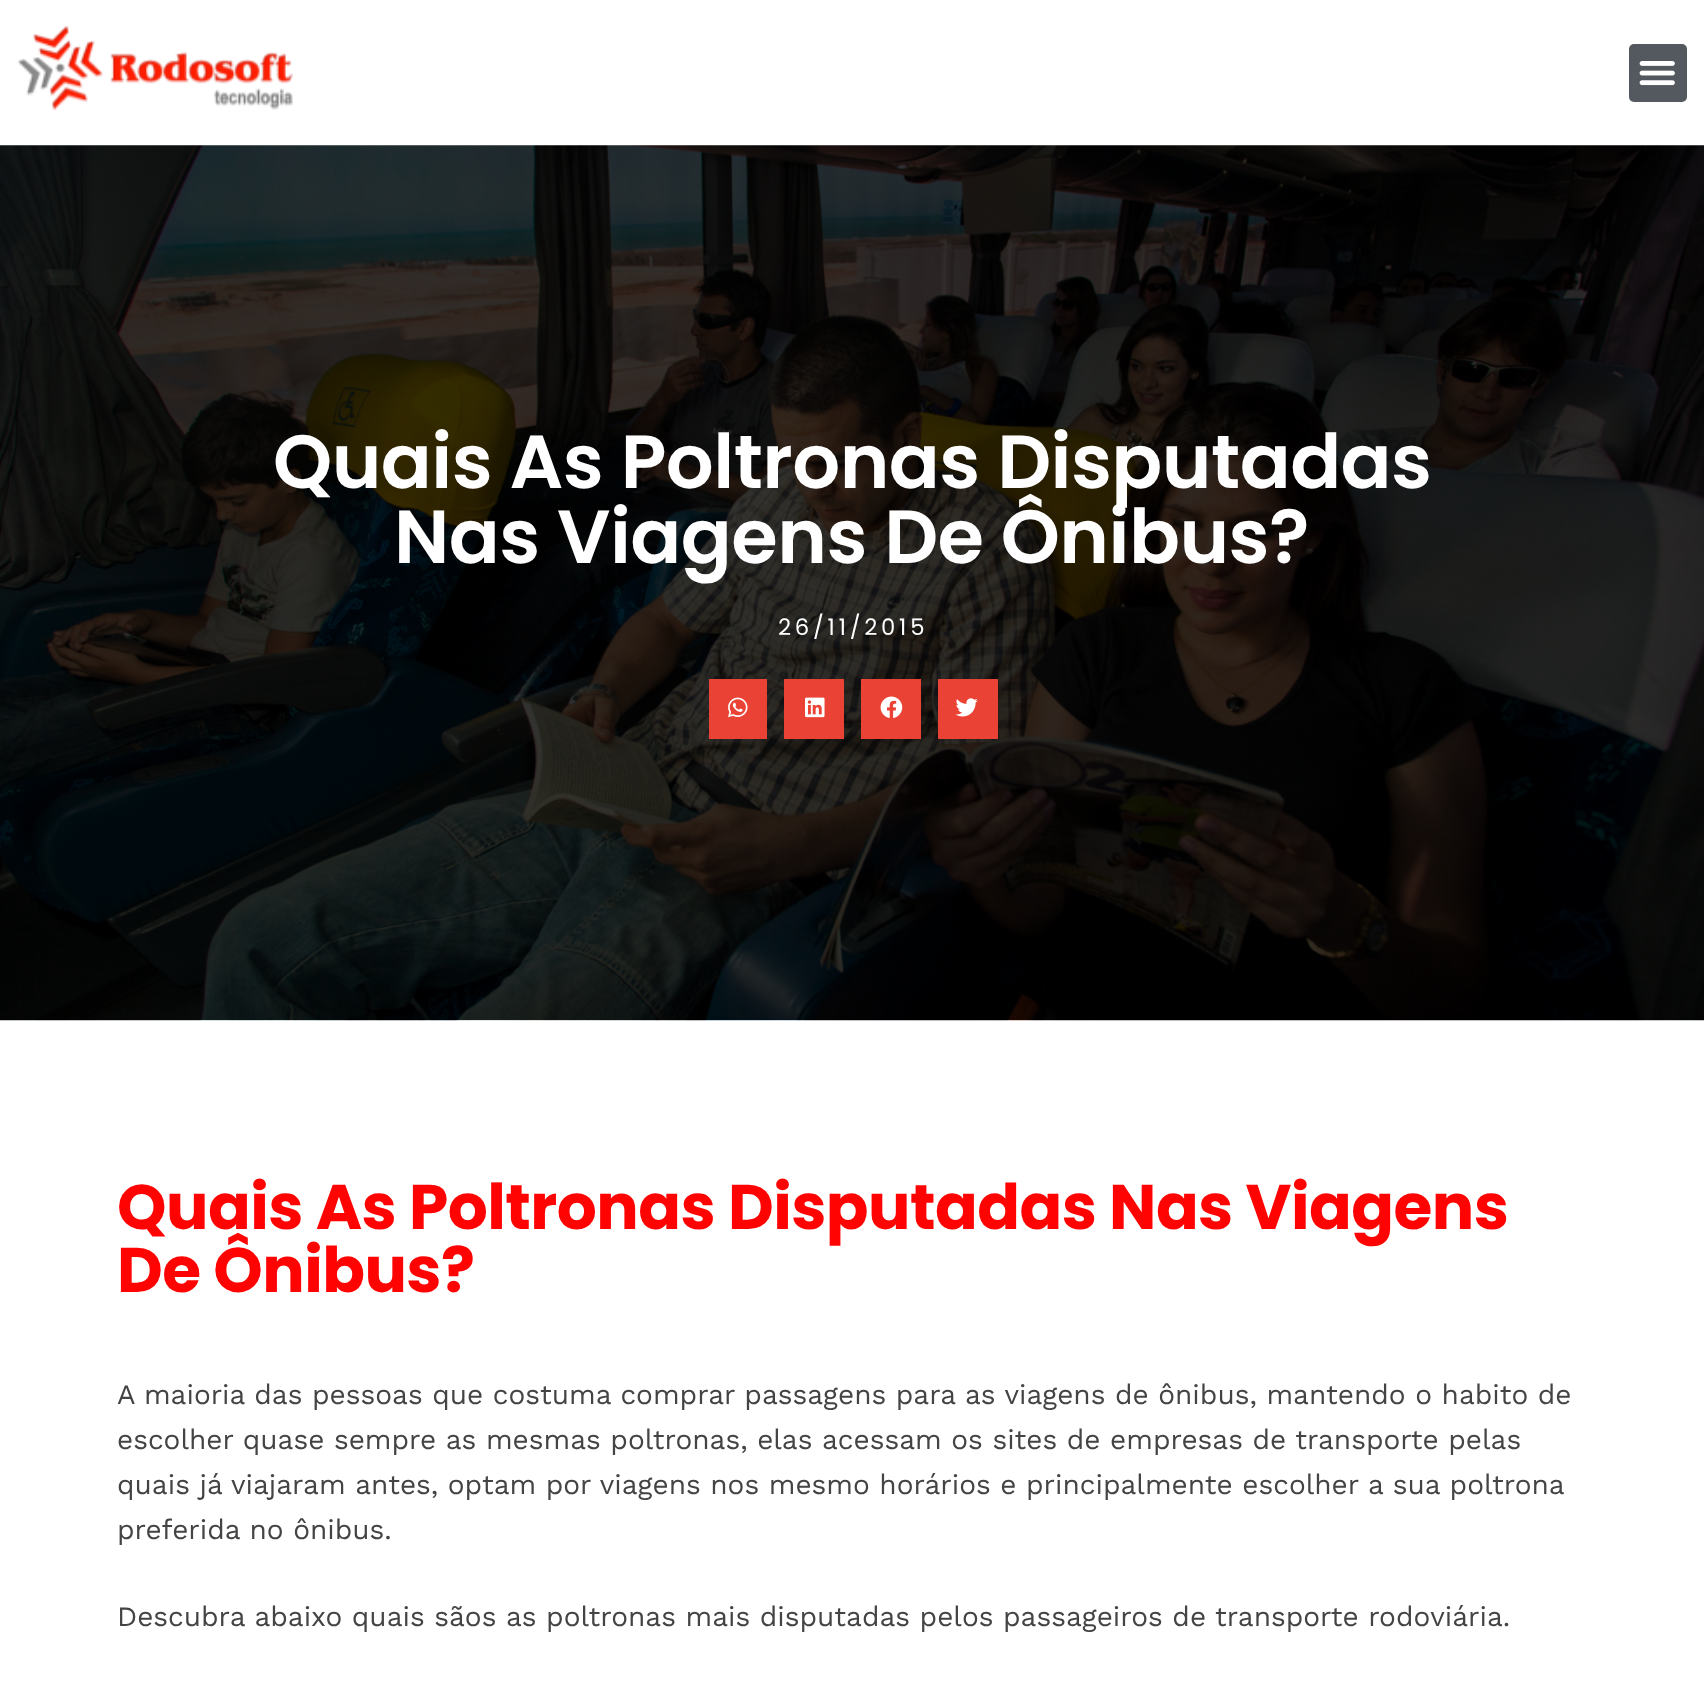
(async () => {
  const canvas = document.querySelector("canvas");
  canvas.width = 1704;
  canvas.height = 1681;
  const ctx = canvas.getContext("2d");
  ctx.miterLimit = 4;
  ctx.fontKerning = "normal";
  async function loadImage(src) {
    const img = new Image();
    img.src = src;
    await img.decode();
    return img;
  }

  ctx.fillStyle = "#ffffff";
  ctx.fillRect(0, 0, 1704, 1681);
  ctx.drawImage(await loadImage("img/1.png"), 17, 26, 276, 85);
  ctx.fillStyle = "#54595f";
  ctx.beginPath();
  ctx.roundRect(1629, 44, 58, 58, 5);
  ctx.fill();
  ctx.drawImage(await loadImage("img/2.png"), 1639, 61, 36, 25);
  ctx.drawImage(await loadImage("img/3.png"), 0, 145, 1704, 876);
  ctx.fillStyle = "#ea4335";
  ctx.fillRect(709, 679, 58, 60);
  ctx.drawImage(await loadImage("img/4.png"), 728, 697, 20, 21);
  ctx.fillRect(784, 679, 60, 60);
  ctx.drawImage(await loadImage("img/5.png"), 805, 697, 20, 21);
  ctx.fillRect(861, 679, 60, 60);
  ctx.drawImage(await loadImage("img/6.png"), 880, 696, 23, 22);
  ctx.fillRect(938, 679, 60, 60);
  ctx.drawImage(await loadImage("img/7.png"), 955, 698, 23, 19);
  ctx.letterSpacing = "-0.55px";
  ctx.font = "600 75.25px Poppins";
  ctx.fillStyle = "#ffffff";
  ctx.fillText("Quais As Poltronas Disputadas", 273, 488);
  ctx.fillText("Nas Viagens De Ônibus?", 394, 563);
  ctx.letterSpacing = "3.75px";
  ctx.font = "22.75px Poppins";
  ctx.fillText("26/11/2015", 778, 635);
  ctx.letterSpacing = "-0.55px";
  ctx.font = "bold 63px Poppins";
  ctx.fillStyle = "#ff0303";
  ctx.fillText("Quais As Poltronas Disputadas Nas Viagens", 117, 1229);
  ctx.fillText("De Ônibus?", 117, 1292);
  ctx.letterSpacing = "0px";
  ctx.font = "28px Work Sans";
  ctx.fillStyle = "#444444";
  for (const [text, x, y] of [
    ["A maioria das pessoas que costuma comprar passagens para as viagens de ônibus, mantendo o habito de", 117, 1404],
    ["escolher quase sempre as mesmas poltronas, elas acessam os sites de empresas de transporte pelas", 117, 1449],
    ["quais já viajaram antes, optam por viagens nos mesmo horários e principalmente escolher a sua poltrona", 117, 1494],
    ["preferida no ônibus.", 117, 1539],
    ["Descubra abaixo quais sãos as poltronas mais disputadas pelos passageiros de transporte rodoviária.", 117, 1626],
  ]) {
    ctx.fillText(text, x, y);
  }
})();
